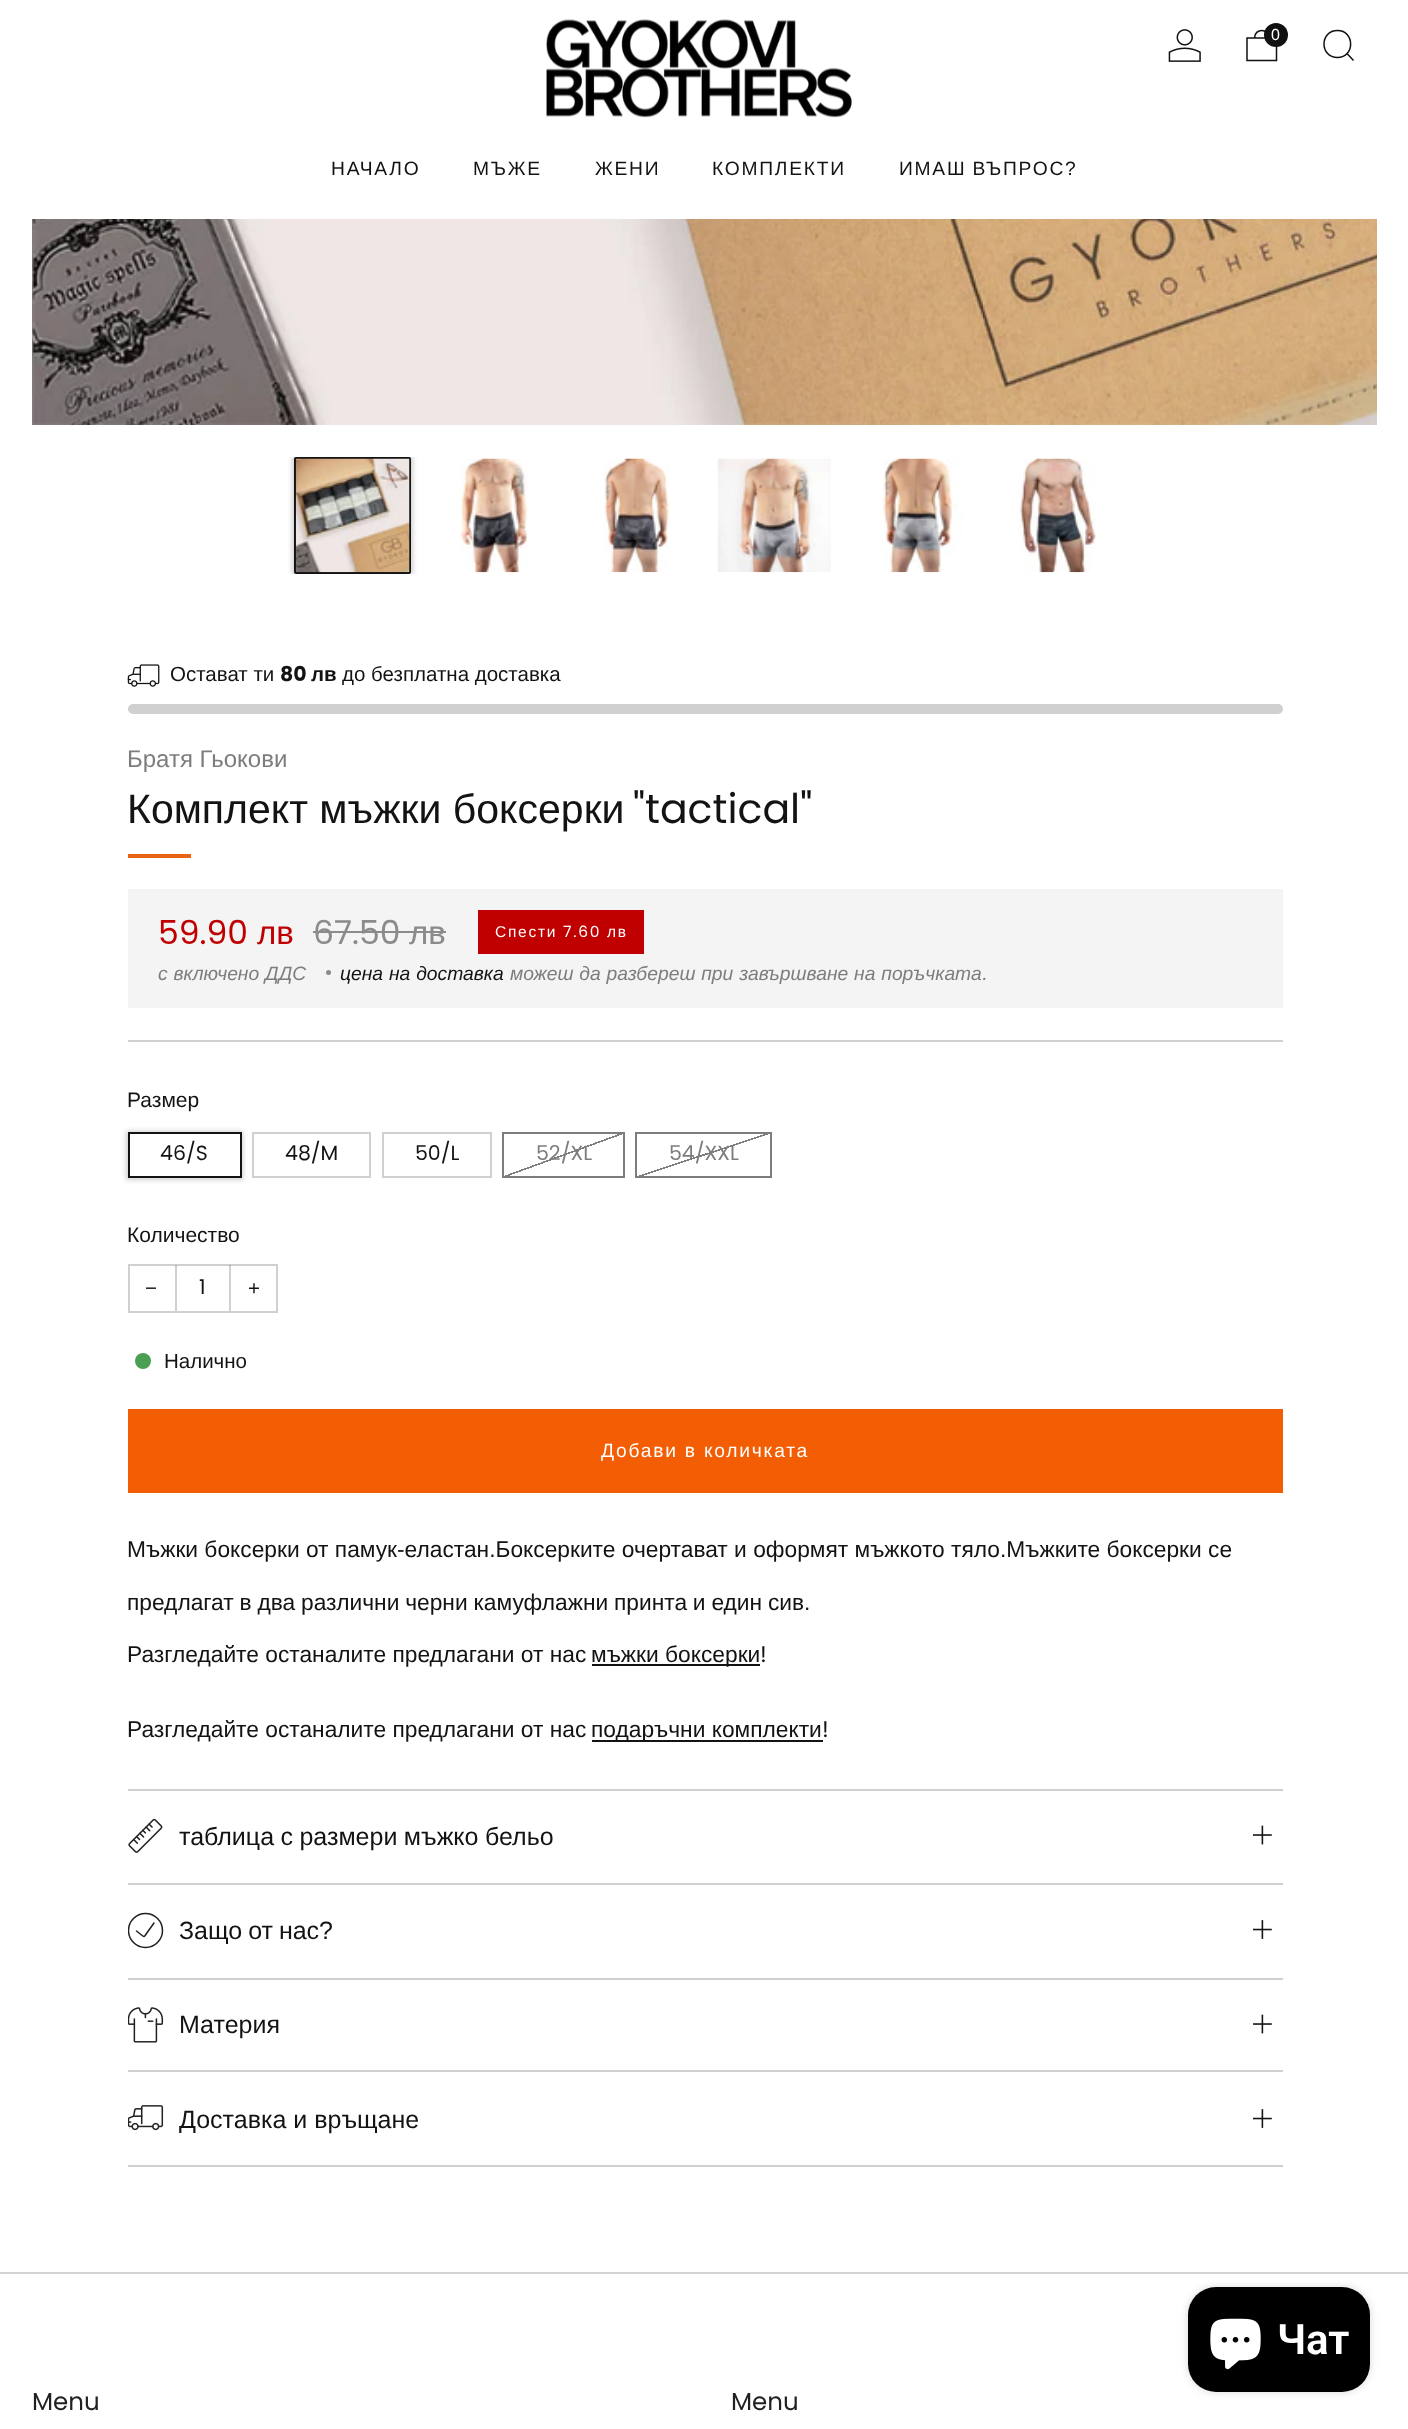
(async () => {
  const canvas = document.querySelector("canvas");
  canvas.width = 1408;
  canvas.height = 2429;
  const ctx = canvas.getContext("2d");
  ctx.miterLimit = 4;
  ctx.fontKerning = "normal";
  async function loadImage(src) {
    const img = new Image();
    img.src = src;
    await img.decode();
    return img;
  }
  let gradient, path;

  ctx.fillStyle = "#ffffff";
  ctx.fillRect(0, 0, 1408, 2429);
  ctx.drawImage(await loadImage("img/1.png"), 546, 19, 306, 99);
  ctx.drawImage(await loadImage("img/2.png"), 1168, 29, 33, 33);
  path = new Path2D("M1247 38H1276.5V60.5H1247ZM1269 38C1269 28 1254.5 28 1254.5 38");
  ctx.strokeStyle = "#111111";
  ctx.lineWidth = 1.5;
  ctx.stroke(path);
  ctx.fillStyle = "#111111";
  ctx.beginPath();
  ctx.arc(1276, 35, 12, 0, Math.PI * 2);
  ctx.fill();
  path = new Path2D("M1337.5 57.5C1355 57.5 1355 30.5 1337.5 30.5C1319.5 30.5 1319.5 57.5 1337.5 57.5ZM1347 53.5L1353.5 60.5");
  ctx.stroke(path);
  ctx.drawImage(await loadImage("img/3.png"), 32, 219, 1345, 206);
  ctx.save();
  ctx.beginPath();
  ctx.rect(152, 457, 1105, 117);
  ctx.clip();
  ctx.fillStyle = "rgba(19, 19, 19, 0.2)";
  ctx.filter = "blur(2.5px)";
  ctx.beginPath();
  ctx.roundRect(292, 455, 121, 121, 4);
  ctx.fill();
  ctx.filter = "none";
  ctx.restore();
  ctx.beginPath();
  ctx.roundRect(295, 458, 115, 115, 1);
  ctx.strokeStyle = "#131313";
  ctx.lineWidth = 2;
  ctx.stroke();
  ctx.drawImage(await loadImage("img/4.png"), 295, 458, 115, 115);
  ctx.drawImage(await loadImage("img/5.png"), 460, 458, 69, 115);
  ctx.drawImage(await loadImage("img/6.png"), 604, 458, 66, 115);
  ctx.drawImage(await loadImage("img/7.png"), 717, 458, 114, 115);
  ctx.drawImage(await loadImage("img/8.png"), 882, 458, 81, 115);
  ctx.drawImage(await loadImage("img/9.png"), 1019, 458, 77, 115);
  ctx.drawImage(await loadImage("img/10.png"), 127, 664, 33, 23);
  ctx.fillStyle = "#d0d0d0";
  ctx.beginPath();
  ctx.roundRect(128, 704, 1155, 10, 5);
  ctx.fill();
  for (const [x, y, w, h, color] of [
    [128, 854, 63, 4, "#e86314"],
    [128, 889, 1155, 119, "#f4f4f4"],
    [313, 931, 133, 2, "#8b8b8b"],
    [478, 910, 166, 44, "#c00000"],
  ]) {
    ctx.fillStyle = color;
    ctx.fillRect(x, y, w, h);
  }
  ctx.fillStyle = "#8b8b8b";
  ctx.beginPath();
  ctx.arc(328.5, 972.5, 2.5, 0, Math.PI * 2);
  ctx.fill();
  ctx.fillStyle = "#d0d0d0";
  ctx.fillRect(128, 1040, 1155, 2);
  ctx.save();
  path = new Path2D("M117 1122H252V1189H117ZM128 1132H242V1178H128Z");
  ctx.clip(path, "evenodd");
  ctx.fillStyle = "rgba(19, 19, 19, 0.2)";
  ctx.filter = "blur(2.5px)";
  ctx.beginPath();
  ctx.rect(126, 1131, 117, 49);
  ctx.fill();
  ctx.filter = "none";
  ctx.restore();
  ctx.strokeRect(129, 1133, 112, 44);
  ctx.strokeStyle = "#d0d0d0";
  ctx.strokeRect(253, 1133, 117, 44);
  ctx.strokeRect(383, 1133, 108, 44);
  ctx.strokeStyle = "#7d7d7d";
  ctx.strokeRect(503, 1133, 121, 44);
  gradient = ctx.createLinearGradient(577, 1192, 550, 1118);
  gradient.addColorStop(0.49, "rgba(19, 19, 19, 0)");
  gradient.addColorStop(0.49, "rgba(19, 19, 19, 0.55)");
  gradient.addColorStop(0.51, "rgba(19, 19, 19, 0.55)");
  gradient.addColorStop(0.51, "rgba(19, 19, 19, 0)");
  ctx.fillStyle = gradient;
  ctx.fillRect(505, 1134, 117, 42);
  ctx.strokeRect(636, 1133, 135, 44);
  gradient = ctx.createLinearGradient(716, 1193, 691, 1117);
  gradient.addColorStop(0.49, "rgba(19, 19, 19, 0)");
  gradient.addColorStop(0.49, "rgba(19, 19, 19, 0.55)");
  gradient.addColorStop(0.51, "rgba(19, 19, 19, 0.55)");
  gradient.addColorStop(0.51, "rgba(19, 19, 19, 0)");
  ctx.fillStyle = gradient;
  ctx.fillRect(639, 1134, 129, 42);
  ctx.strokeStyle = "#d0d0d0";
  ctx.strokeRect(129, 1265, 148, 47);
  ctx.fillStyle = "rgba(19, 19, 19, 0.2)";
  ctx.fillRect(229, 1265, 2, 46);
  ctx.fillRect(175, 1265, 2, 46);
  ctx.fillStyle = "#4a9f53";
  ctx.beginPath();
  ctx.arc(143, 1361, 8, 0, Math.PI * 2);
  ctx.fill();
  for (const [x, y, w, h, color] of [
    [128, 1409, 1155, 84, "#f35d04"],
    [592, 1664, 168, 2, "#131313"],
    [592, 1740, 231, 2, "#131313"],
    [128, 1789, 1155, 2, "#d0d0d0"],
    [128, 1883, 1155, 2, "#d0d0d0"],
  ]) {
    ctx.fillStyle = color;
    ctx.fillRect(x, y, w, h);
  }
  ctx.drawImage(await loadImage("img/11.png"), 128, 1818, 35, 35);
  ctx.drawImage(await loadImage("img/12.png"), 1253, 1825, 19, 20);
  ctx.fillRect(128, 1978, 1155, 2);
  path = new Path2D("M154 1923L146.5 1933.5C144.5 1936.5 144.5 1937.5 141.5 1935L136.5 1931");
  ctx.strokeStyle = "#212121";
  ctx.lineWidth = 1.5;
  ctx.lineCap = "round";
  ctx.lineJoin = "round";
  ctx.stroke(path);
  ctx.save();
  ctx.beginPath();
  ctx.rect(128, 1885, 1155, 93);
  ctx.clip();
  ctx.beginPath();
  ctx.arc(145.5, 1930.5, 17, 0, Math.PI * 2);
  ctx.stroke();
  ctx.restore();
  ctx.drawImage(await loadImage("img/13.png"), 1253, 1920, 19, 19);
  ctx.fillRect(128, 2070, 1155, 2);
  ctx.drawImage(await loadImage("img/14.png"), 128, 2007, 36, 36);
  ctx.drawImage(await loadImage("img/12.png"), 1253, 2014, 19, 20);
  ctx.fillRect(128, 2165, 1155, 2);
  ctx.drawImage(await loadImage("img/15.png"), 128, 2105, 36, 26);
  ctx.drawImage(await loadImage("img/13.png"), 1253, 2109, 19, 19);
  ctx.fillStyle = "#d3d3d3";
  ctx.fillRect(0, 2272, 1408, 2);
  ctx.fillStyle = "rgba(0, 0, 0, 0.15)";
  ctx.filter = "blur(4.5px)";
  ctx.beginPath();
  ctx.roundRect(1188, 2287, 182, 105, 28);
  ctx.fill();
  ctx.filter = "none";
  ctx.fillStyle = "#000000";
  ctx.beginPath();
  ctx.roundRect(1188, 2287, 182, 105, 28);
  ctx.fill();
  ctx.drawImage(await loadImage("img/16.png"), 1210, 2318, 51, 52);
  ctx.font = "16px Liberation Sans";
  ctx.fillStyle = "#ffffff";
  ctx.fillText("0", 1271, 40);
  ctx.letterSpacing = "1.75px";
  ctx.font = "19.25px Liberation Sans";
  ctx.fillStyle = "#131313";
  for (const [text, x, y] of [
    ["НАЧАЛО", 331, 175],
    ["МЪЖЕ", 473, 175],
    ["ЖЕНИ", 595, 175],
    ["КОМПЛЕКТИ", 712, 175],
  ]) {
    ctx.fillText(text, x, y);
  }
  ctx.wordSpacing = "-1px";
  ctx.fillText("ИМАШ ВЪПРОС?", 899, 175);
  ctx.letterSpacing = "0px";
  ctx.wordSpacing = "0px";
  ctx.font = "20.5px Liberation Sans";
  ctx.fillText("Остават ти", 170, 681);
  ctx.font = "bold 20.5px Poppins";
  ctx.fillText("80", 280, 681);
  ctx.font = "bold 20.5px Liberation Sans";
  ctx.fillText("лв", 311, 681);
  ctx.font = "20.5px Liberation Sans";
  ctx.fillText("до безплатна доставка", 342, 681);
  ctx.font = "24px Liberation Sans";
  ctx.fillStyle = "#7d7d7d";
  ctx.fillText("Братя Гьокови", 127, 767);
  ctx.font = "41px Liberation Sans";
  ctx.fillStyle = "#131313";
  ctx.fillText("Комплект мъжки боксерки", 127, 823);
  ctx.font = "41px Poppins";
  ctx.fillText("\"tactical\"", 633, 823);
  ctx.font = "33px Poppins";
  ctx.fillStyle = "#c00000";
  ctx.fillText("59.90", 158, 944);
  ctx.font = "33px Liberation Sans";
  ctx.fillText("лв", 257, 944);
  ctx.font = "33px Poppins";
  ctx.fillStyle = "#8b8b8b";
  ctx.fillText("67.50", 313, 944);
  ctx.font = "33px Liberation Sans";
  ctx.fillText("лв", 409, 944);
  ctx.letterSpacing = "1.75px";
  ctx.font = "15.5px Liberation Sans";
  ctx.fillStyle = "#ffffff";
  ctx.fillText("Спести", 495, 937);
  ctx.font = "15.5px Poppins";
  ctx.fillText("7.60", 563, 937);
  ctx.font = "15.5px Liberation Sans";
  ctx.fillText("лв", 607, 937);
  ctx.letterSpacing = "0px";
  ctx.wordSpacing = "0.5px";
  ctx.font = "italic 19.3px Liberation Sans";
  ctx.fillStyle = "#7d7d7d";
  ctx.fillText("с включено ДДС", 158, 980);
  ctx.fillStyle = "#131313";
  ctx.fillText("цена на доставка", 340, 980);
  ctx.fillStyle = "#7d7d7d";
  ctx.fillText("можеш да разбереш при завършване на поръчката", 510, 980);
  ctx.wordSpacing = "0px";
  ctx.font = "italic 19.3px Poppins";
  ctx.fillText(".", 983, 980);
  ctx.font = "21px Liberation Sans";
  ctx.fillStyle = "#131313";
  ctx.fillText("Размер", 127, 1107);
  ctx.font = "20.5px Poppins";
  for (const [text, x, y] of [
    ["46/S", 160, 1160],
    ["48/M", 285, 1160],
    ["50/L", 415, 1160],
  ]) {
    ctx.fillText(text, x, y);
  }
  ctx.fillStyle = "#7d7d7d";
  ctx.fillText("52/XL", 536, 1160);
  ctx.fillText("54/XXL", 669, 1160);
  ctx.font = "21px Liberation Sans";
  ctx.fillStyle = "#131313";
  ctx.fillText("Количество", 127, 1242);
  ctx.font = "20.5px Liberation Sans";
  ctx.fillText("−", 145, 1295);
  ctx.font = "20.5px Poppins";
  ctx.fillText("1", 199, 1294);
  ctx.font = "20.5px Liberation Sans";
  ctx.fillText("+", 248, 1295);
  ctx.fillText("Налично", 164, 1368);
  ctx.letterSpacing = "1.75px";
  ctx.font = "19.25px Liberation Sans";
  ctx.fillStyle = "#ffffff";
  ctx.fillText("Добави в количката", 601, 1457);
  ctx.letterSpacing = "0px";
  ctx.font = "22.75px Liberation Sans";
  ctx.fillStyle = "#131313";
  ctx.fillText("Мъжки боксерки от памук-еластан.Боксерките очертават и оформят мъжкото тяло.Мъжките боксерки се", 127, 1557);
  ctx.wordSpacing = "-0.5px";
  ctx.fillText("предлагат в два различни черни камуфлажни принта и един сив.", 127, 1610);
  ctx.wordSpacing = "0px";
  ctx.fillText("Разгледайте останалите предлагани от нас", 127, 1662);
  ctx.fillText("мъжки боксерки", 591, 1662);
  ctx.font = "22.75px Poppins";
  ctx.fillText("!", 760, 1662);
  ctx.font = "22.75px Liberation Sans";
  ctx.fillText("Разгледайте останалите предлагани от нас", 127, 1737);
  ctx.fillText("подаръчни комплекти", 591, 1737);
  ctx.font = "22.75px Poppins";
  ctx.fillText("!", 822, 1737);
  ctx.wordSpacing = "-0.5px";
  ctx.font = "25px Liberation Sans";
  ctx.fillText("таблица с размери мъжко бельо", 179, 1845);
  ctx.wordSpacing = "-1px";
  ctx.fillText("Защо от нас?", 179, 1939);
  ctx.wordSpacing = "0px";
  ctx.fillText("Материя", 179, 2033);
  ctx.fillText("Доставка и връщане", 179, 2128);
  ctx.font = "24.5px Poppins";
  ctx.fillStyle = "#212121";
  ctx.fillText("Menu", 32, 2410);
  ctx.fillText("Menu", 731, 2410);
  ctx.font = "600 42px Roboto";
  ctx.fillStyle = "#ffffff";
  ctx.fillText("Чат", 1277, 2354);
})();
